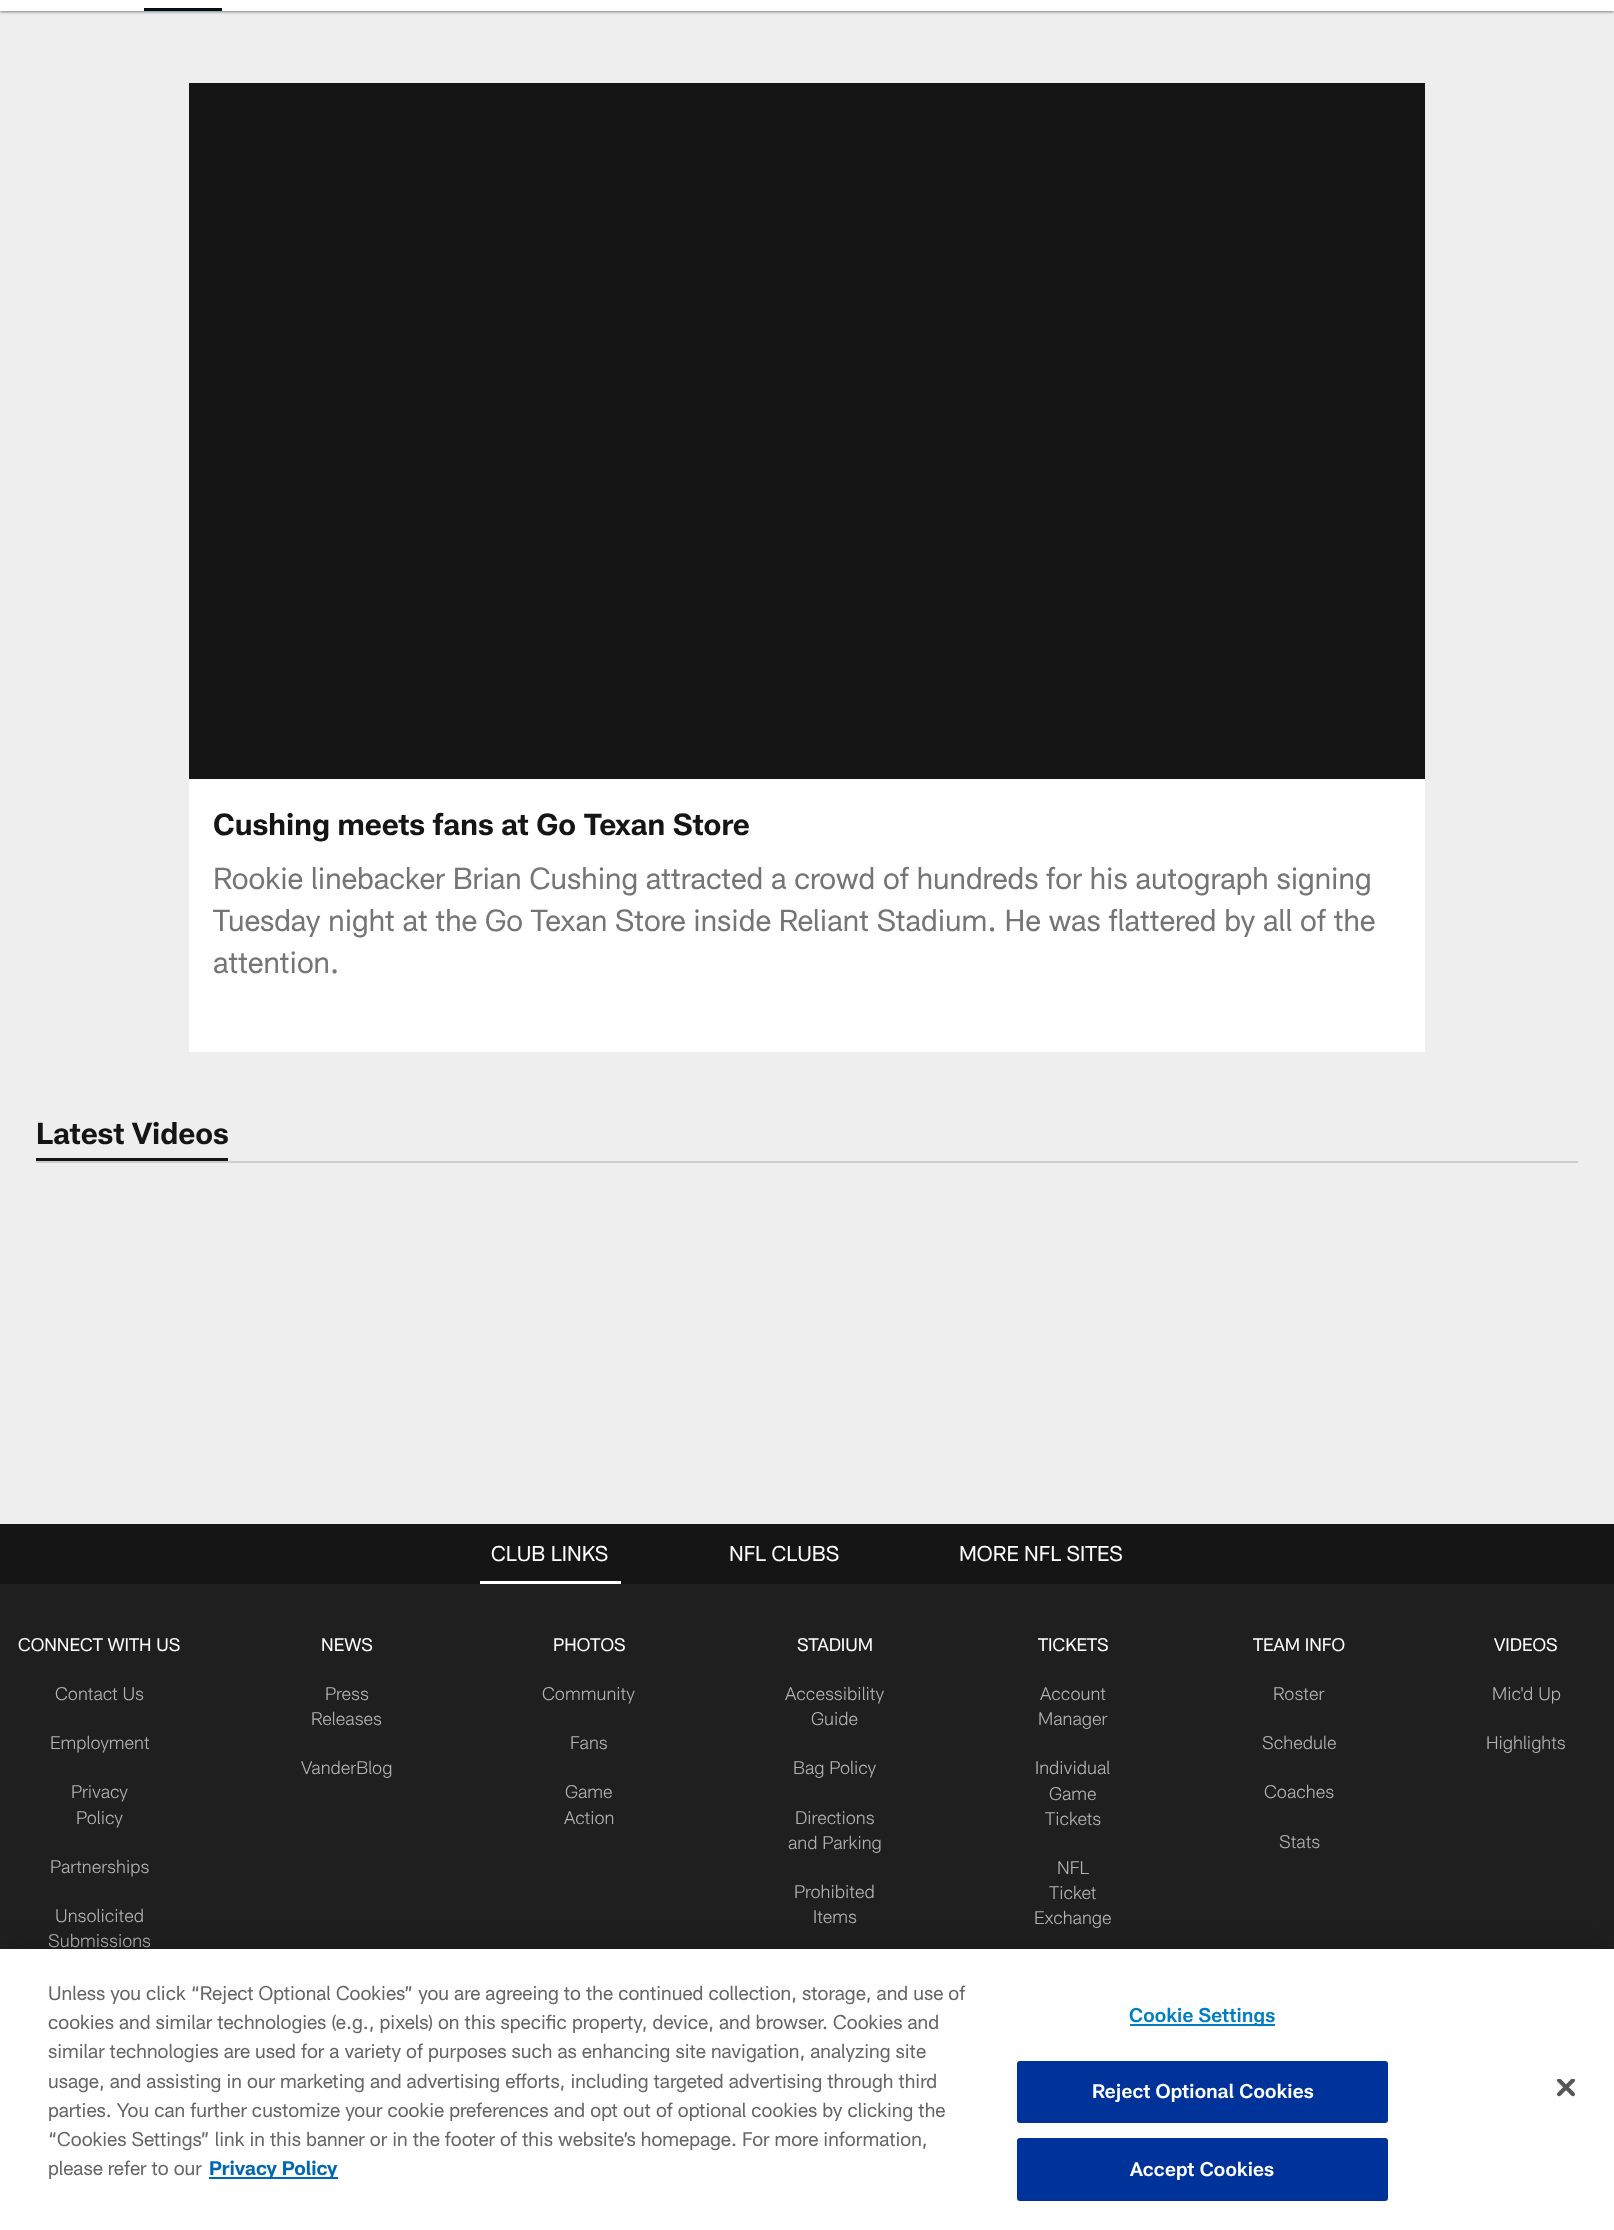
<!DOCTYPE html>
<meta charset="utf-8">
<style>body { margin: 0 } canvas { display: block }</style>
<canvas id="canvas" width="1614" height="2230"></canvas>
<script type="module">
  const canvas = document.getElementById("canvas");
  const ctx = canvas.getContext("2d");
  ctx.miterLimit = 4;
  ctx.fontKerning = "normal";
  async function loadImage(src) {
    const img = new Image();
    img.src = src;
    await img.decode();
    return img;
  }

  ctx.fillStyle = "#eeeeee";
  ctx.fillRect(0, 0, 1614, 2230);
  ctx.fillStyle = "rgba(0, 0, 0, 0.47)";
  ctx.filter = "blur(1.5px)";
  ctx.beginPath();
  ctx.rect(0, -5, 1614, 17);
  ctx.fill();
  ctx.filter = "none";
  ctx.fillStyle = "#ffffff";
  ctx.fillRect(0, 0, 1614, 11);
  ctx.fillStyle = "#021018";
  ctx.fillRect(144, 8, 78, 3);
  ctx.fillStyle = "#ffffff";
  ctx.fillRect(189, 779, 1236, 273);
  ctx.fillStyle = "#151515";
  ctx.fillRect(189, 83, 1236, 696);
  ctx.font = "bold 30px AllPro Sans";
  ctx.fillText("Cushing meets fans at Go Texan Store", 213, 835);
  ctx.font = "30px AllPro Sans";
  ctx.fillStyle = "#757575";
  ctx.fillText("Rookie linebacker Brian Cushing attracted a crowd of hundreds for his autograph signing", 213, 889);
  ctx.fillText("Tuesday night at the Go Texan Store inside Reliant Stadium. He was flattered by all of the", 213, 931);
  ctx.fillText("attention.", 213, 973);
  ctx.fillStyle = "#cccccc";
  ctx.fillRect(36, 1161, 1542, 2);
  ctx.fillStyle = "#151515";
  ctx.fillRect(36, 1158, 192, 3);
  ctx.font = "bold 30px AllPro Sans";
  ctx.fillText("Latest Videos", 36, 1144);
  ctx.fillStyle = "#1f1f1f";
  ctx.fillRect(0, 1584, 1614, 365);
  ctx.fillStyle = "#151515";
  ctx.fillRect(0, 1524, 1614, 60);
  ctx.fillStyle = "#ffffff";
  ctx.fillRect(480, 1581, 141, 3);
  ctx.font = "21px AllPro Sans";
  ctx.fillText("CLUB LINKS", 491, 1561);
  ctx.fillText("NFL CLUBS", 729, 1561);
  ctx.fillText("MORE NFL SITES", 959, 1561);
  ctx.font = "18px AllPro Sans";
  ctx.fillText("CONNECT WITH US", 18, 1651);
  ctx.font = "300 18px AllPro Sans";
  ctx.fillStyle = "#b2b2b2";
  ctx.fillText("Contact Us", 55, 1700);
  ctx.fillText("Employment", 50, 1749);
  ctx.fillText("Privacy", 71, 1798);
  ctx.fillText("Policy", 76, 1824);
  ctx.fillText("Partnerships", 50, 1873);
  ctx.fillText("Unsolicited", 55, 1922);
  ctx.fillText("Submissions", 48, 1947);
  ctx.font = "18px AllPro Sans";
  ctx.fillStyle = "#ffffff";
  ctx.fillText("NEWS", 321, 1651);
  ctx.font = "300 18px AllPro Sans";
  ctx.fillStyle = "#b2b2b2";
  ctx.fillText("Press", 325, 1700);
  ctx.fillText("Releases", 311, 1725);
  ctx.fillText("VanderBlog", 301, 1774);
  ctx.font = "18px AllPro Sans";
  ctx.fillStyle = "#ffffff";
  ctx.fillText("PHOTOS", 553, 1651);
  ctx.font = "300 18px AllPro Sans";
  ctx.fillStyle = "#b2b2b2";
  ctx.fillText("Community", 542, 1700);
  ctx.fillText("Fans", 570, 1749);
  ctx.fillText("Game", 565, 1798);
  ctx.fillText("Action", 564, 1824);
  ctx.font = "18px AllPro Sans";
  ctx.fillStyle = "#ffffff";
  ctx.fillText("STADIUM", 797, 1651);
  ctx.font = "300 18px AllPro Sans";
  ctx.fillStyle = "#b2b2b2";
  ctx.fillText("Accessibility", 785, 1700);
  ctx.fillText("Guide", 811, 1725);
  ctx.fillText("Bag Policy", 793, 1774);
  ctx.fillText("Directions", 795, 1824);
  ctx.fillText("and Parking", 788, 1849);
  ctx.fillText("Prohibited", 794, 1898);
  ctx.fillText("Items", 813, 1923);
  ctx.font = "18px AllPro Sans";
  ctx.fillStyle = "#ffffff";
  ctx.fillText("TICKETS", 1038, 1651);
  ctx.font = "300 18px AllPro Sans";
  ctx.fillStyle = "#b2b2b2";
  ctx.fillText("Account", 1040, 1700);
  ctx.fillText("Manager", 1038, 1725);
  ctx.fillText("Individual", 1035, 1774);
  ctx.fillText("Game", 1049, 1800);
  ctx.fillText("Tickets", 1045, 1825);
  ctx.fillText("NFL", 1057, 1874);
  ctx.fillText("Ticket", 1049, 1899);
  ctx.fillText("Exchange", 1034, 1924);
  ctx.font = "18px AllPro Sans";
  ctx.fillStyle = "#ffffff";
  ctx.fillText("TEAM INFO", 1253, 1651);
  ctx.font = "300 18px AllPro Sans";
  ctx.fillStyle = "#b2b2b2";
  ctx.fillText("Roster", 1273, 1700);
  ctx.fillText("Schedule", 1262, 1749);
  ctx.fillText("Coaches", 1264, 1798);
  ctx.fillText("Stats", 1279, 1848);
  ctx.font = "18px AllPro Sans";
  ctx.fillStyle = "#ffffff";
  ctx.fillText("VIDEOS", 1494, 1651);
  ctx.font = "300 18px AllPro Sans";
  ctx.fillStyle = "#b2b2b2";
  ctx.fillText("Mic'd Up", 1492, 1700);
  ctx.fillText("Highlights", 1486, 1749);
  ctx.fillStyle = "rgba(0, 0, 0, 0.2)";
  ctx.filter = "blur(13.5px)";
  ctx.beginPath();
  ctx.rect(0, 1949, 1614, 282);
  ctx.fill();
  ctx.filter = "none";
  ctx.fillStyle = "#ffffff";
  ctx.fillRect(0, 1949, 1614, 281);
  ctx.font = "19.5px AllPro Sans";
  ctx.fillStyle = "#666666";
  ctx.fillText("Unless you click “Reject Optional Cookies” you are agreeing to the continued collection, storage, and use of", 48, 2000);
  ctx.fillText("cookies and similar technologies (e.g., pixels) on this specific property, device, and browser. Cookies and", 48, 2029);
  ctx.fillText("similar technologies are used for a variety of purposes such as enhancing site navigation, analyzing site", 48, 2058);
  ctx.fillText("usage, and assisting in our marketing and advertising efforts, including targeted advertising through third", 48, 2088);
  ctx.fillText("parties. You can further customize your cookie preferences and opt out of optional cookies by clicking the", 48, 2117);
  ctx.fillText("“Cookies Settings” link in this banner or in the footer of this website’s homepage. For more information,", 48, 2146);
  ctx.fillText("please refer to our", 48, 2175);
  ctx.fillStyle = "#0067b1";
  ctx.fillRect(209, 2177, 129, 2);
  ctx.font = "bold 19.5px AllPro Sans";
  ctx.fillText("Privacy Policy", 209, 2175);
  ctx.fillStyle = "#007dc3";
  ctx.fillRect(1130, 2024, 145, 2);
  ctx.letterSpacing = "0.2px";
  ctx.font = "600 19.5px AllPro Sans";
  ctx.fillText("Cookie Settings", 1129, 2022);
  ctx.fillStyle = "#003399";
  ctx.beginPath();
  ctx.roundRect(1018, 2062, 369, 60, 2);
  ctx.fill();
  ctx.strokeStyle = "#003399";
  ctx.lineWidth = 2;
  ctx.stroke();
  ctx.fillStyle = "#ffffff";
  ctx.fillText("Reject Optional Cookies", 1092, 2098);
  ctx.fillStyle = "#003399";
  ctx.beginPath();
  ctx.roundRect(1018, 2139, 369, 61, 2);
  ctx.fill();
  ctx.stroke();
  ctx.fillStyle = "#ffffff";
  ctx.fillText("Accept Cookies", 1130, 2176);
  ctx.drawImage(await loadImage("img1.png"), 1557, 2079, 18, 18);
</script>
